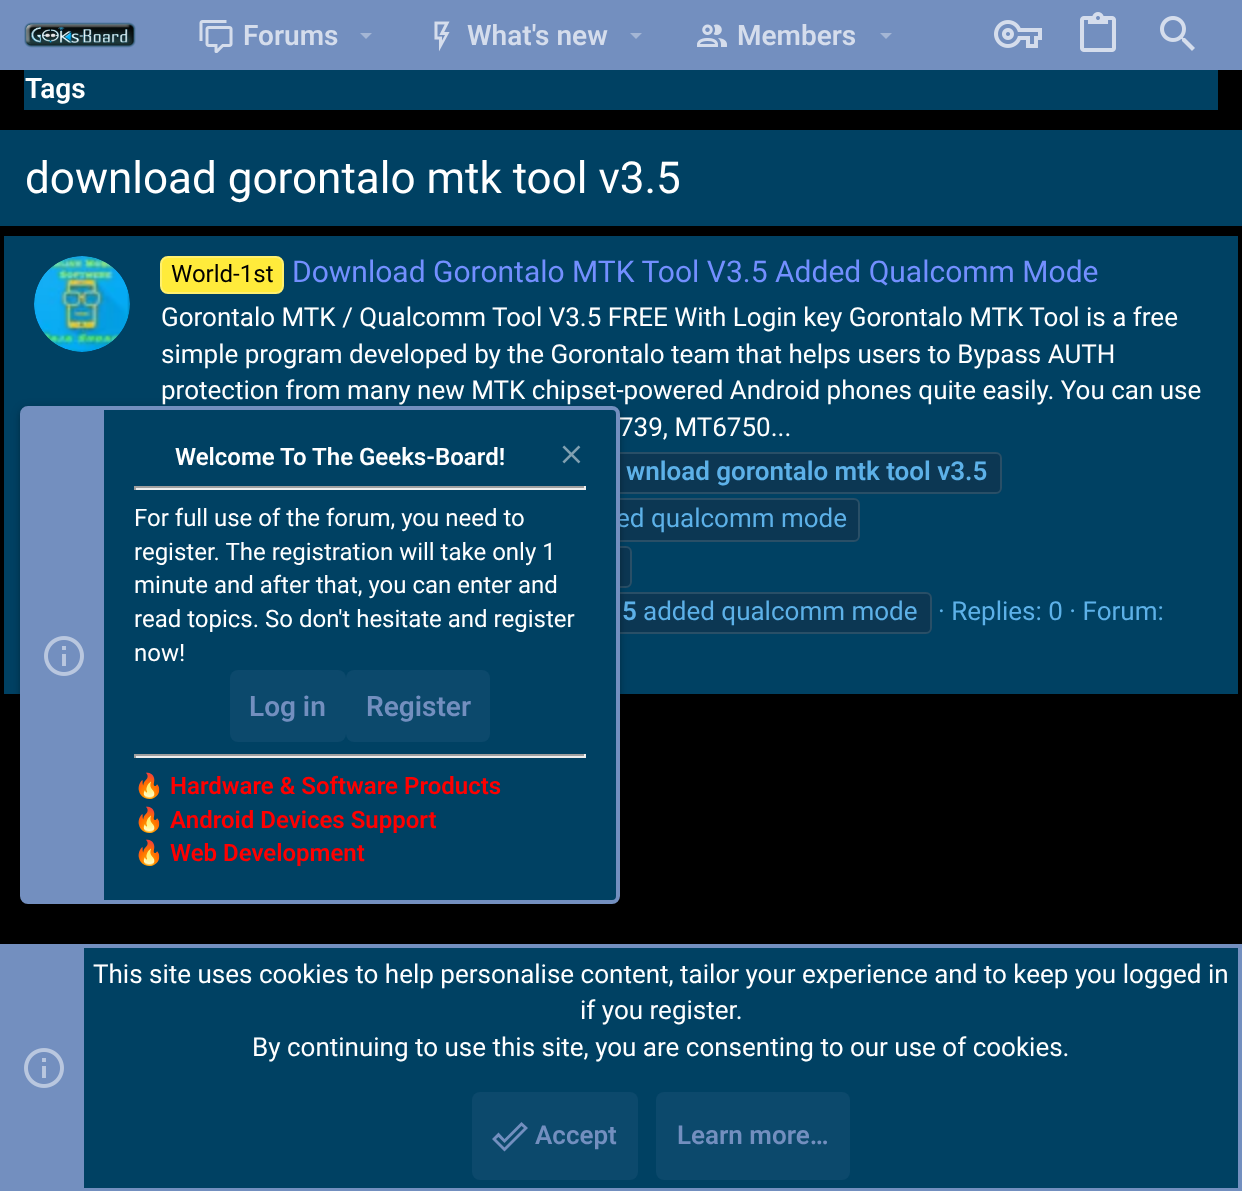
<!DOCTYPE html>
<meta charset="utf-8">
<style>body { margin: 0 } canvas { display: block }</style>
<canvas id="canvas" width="1242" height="1191"></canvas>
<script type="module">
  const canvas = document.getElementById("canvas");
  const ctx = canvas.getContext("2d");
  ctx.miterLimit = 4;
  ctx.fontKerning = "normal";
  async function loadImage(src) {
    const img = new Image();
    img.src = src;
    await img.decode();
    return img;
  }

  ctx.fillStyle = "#000000";
  ctx.fillRect(0, 0, 1242, 1191);
  ctx.fillStyle = "#738fbf";
  ctx.fillRect(0, 0, 1242, 70);
  ctx.drawImage(await loadImage("img1.png"), 24, 22, 112, 26);
  ctx.drawImage(await loadImage("img2.png"), 199, 20, 34, 33);
  ctx.font = "600 28px Roboto";
  ctx.fillStyle = "#d5ddec";
  ctx.fillText("Forums", 243, 45);
  ctx.fillStyle = "#a4b6d5";
  ctx.beginPath();
  ctx.moveTo(360, 33);
  ctx.lineTo(366, 39);
  ctx.lineTo(372, 33);
  ctx.closePath();
  ctx.fill();
  ctx.drawImage(await loadImage("img3.png"), 434, 21, 16, 31);
  ctx.fillStyle = "#d5ddec";
  ctx.fillText("What's new", 467, 45);
  ctx.fillStyle = "#a4b6d5";
  ctx.beginPath();
  ctx.moveTo(630, 33);
  ctx.lineTo(636, 39);
  ctx.lineTo(642, 33);
  ctx.closePath();
  ctx.fill();
  ctx.drawImage(await loadImage("img4.png"), 697, 24, 30, 23);
  ctx.fillStyle = "#d5ddec";
  ctx.fillText("Members", 737, 45);
  ctx.fillStyle = "#a4b6d5";
  ctx.beginPath();
  ctx.moveTo(880, 33);
  ctx.lineTo(886, 39);
  ctx.lineTo(892, 33);
  ctx.closePath();
  ctx.fill();
  ctx.drawImage(await loadImage("img5.png"), 994, 20, 48, 28);
  ctx.drawImage(await loadImage("img6.png"), 1080, 12, 36, 40);
  ctx.drawImage(await loadImage("img7.png"), 1160, 16, 35, 35);
  ctx.fillStyle = "#004163";
  ctx.fillRect(24, 70, 1194, 40);
  ctx.fillStyle = "#ffffff";
  ctx.fillText("Tags", 25, 98);
  ctx.fillStyle = "#004163";
  ctx.fillRect(0, 130, 1242, 96);
  ctx.font = "44px Roboto";
  ctx.fillStyle = "#ffffff";
  ctx.fillText("download gorontalo mtk tool v3.5", 25, 193);
  ctx.fillStyle = "#004163";
  ctx.fillRect(4, 236, 1234, 458);
  ctx.drawImage(await loadImage("img8.png"), 34, 256, 96, 96);
  ctx.fillStyle = "#ffeb3b";
  ctx.beginPath();
  ctx.roundRect(161, 257, 122, 36, 7);
  ctx.fill();
  ctx.strokeStyle = "#fff06e";
  ctx.lineWidth = 2;
  ctx.stroke();
  ctx.font = "24px Roboto";
  ctx.fillStyle = "#000000";
  ctx.fillText("World-1st", 171, 282);
  ctx.font = "30px Roboto";
  ctx.fillStyle = "#738fff";
  ctx.fillText("Download Gorontalo MTK Tool V3.5 Added Qualcomm Mode", 292, 282);
  ctx.font = "26px Roboto";
  ctx.fillStyle = "#ffffff";
  ctx.fillText("Gorontalo MTK / Qualcomm Tool V3.5 FREE With Login key Gorontalo MTK Tool is a free", 161, 326);
  ctx.fillText("simple program developed by the Gorontalo team that helps users to Bypass AUTH", 161, 363);
  ctx.fillText("protection from many new MTK chipset-powered Android phones quite easily. You can use", 161, 399);
  ctx.fillText("739, MT6750...", 619, 436);
  ctx.fillStyle = "#0c3753";
  ctx.beginPath();
  ctx.roundRect(582, 452, 420, 42, 6);
  ctx.fill();
  ctx.beginPath();
  ctx.roundRect(583, 453, 418, 40, 5);
  ctx.strokeStyle = "rgba(255, 255, 255, 0.12)";
  ctx.stroke();
  ctx.font = "600 26px Roboto";
  ctx.fillStyle = "#5db1e8";
  ctx.fillText("wnload gorontalo mtk tool v3.5", 626, 480);
  ctx.fillStyle = "#0c3753";
  ctx.beginPath();
  ctx.roundRect(160, 498, 700, 44, 6);
  ctx.fill();
  ctx.beginPath();
  ctx.roundRect(161, 499, 698, 42, 5);
  ctx.stroke();
  ctx.font = "26px Roboto";
  ctx.fillStyle = "#5db1e8";
  ctx.fillText("ed qualcomm mode", 616, 527);
  ctx.fillStyle = "#0c3753";
  ctx.beginPath();
  ctx.roundRect(160, 546, 472, 42, 6);
  ctx.fill();
  ctx.beginPath();
  ctx.roundRect(161, 547, 470, 40, 5);
  ctx.stroke();
  ctx.beginPath();
  ctx.roundRect(160, 592, 772, 42, 6);
  ctx.fill();
  ctx.beginPath();
  ctx.roundRect(161, 593, 770, 40, 5);
  ctx.stroke();
  ctx.font = "600 26px Roboto";
  ctx.fillStyle = "#5db1e8";
  ctx.fillText("5", 622, 620);
  ctx.font = "26px Roboto";
  ctx.fillText("added qualcomm mode", 643, 620);
  ctx.fillText("· Replies: 0 · Forum:", 938, 620);
  ctx.fillStyle = "rgba(0, 0, 0, 0.2)";
  ctx.filter = "blur(5px)";
  ctx.beginPath();
  ctx.roundRect(20, 408, 600, 498, 8);
  ctx.fill();
  ctx.filter = "none";
  ctx.fillStyle = "rgba(0, 0, 0, 0.14)";
  ctx.filter = "blur(2px)";
  ctx.beginPath();
  ctx.roundRect(20, 410, 600, 498, 8);
  ctx.fill();
  ctx.filter = "none";
  ctx.fillStyle = "#004163";
  ctx.beginPath();
  ctx.roundRect(22, 408, 596, 494, 6);
  ctx.fill();
  ctx.strokeStyle = "#738fbf";
  ctx.lineWidth = 4;
  ctx.stroke();
  ctx.fillStyle = "#738fbf";
  ctx.fillRect(24, 410, 80, 490);
  ctx.drawImage(await loadImage("img9.png"), 44, 636, 40, 40);
  ctx.font = "600 24px Roboto";
  ctx.fillStyle = "#ffffff";
  ctx.fillText("Welcome To The Geeks-Board!", 175, 465);
  ctx.drawImage(await loadImage("img10.png"), 562, 445, 19, 19);
  ctx.fillStyle = "#9f9f9f";
  ctx.fillRect(134, 486, 452, 2);
  ctx.fillStyle = "#eeeeee";
  ctx.fillRect(584, 486, 2, 4);
  ctx.fillRect(134, 488, 452, 2);
  ctx.fillStyle = "#9f9f9f";
  ctx.fillRect(134, 486, 2, 4);
  ctx.font = "24px Roboto";
  ctx.fillStyle = "#ffffff";
  ctx.fillText("For full use of the forum, you need to", 134, 526);
  ctx.fillText("register. The registration will take only 1", 134, 560);
  ctx.fillText("minute and after that, you can enter and", 134, 593);
  ctx.fillText("read topics. So don't hesitate and register", 134, 627);
  ctx.fillText("now!", 134, 661);
  ctx.fillStyle = "#0c496c";
  ctx.beginPath();
  ctx.roundRect(230, 670, 116, 72, 8);
  ctx.fill();
  ctx.font = "600 28px Roboto";
  ctx.fillStyle = "#738fbf";
  ctx.fillText("Log in", 249, 716);
  ctx.fillStyle = "#0c496c";
  ctx.beginPath();
  ctx.roundRect(346, 670, 144, 72, 8);
  ctx.fill();
  ctx.fillStyle = "#738fbf";
  ctx.fillText("Register", 366, 716);
  ctx.fillStyle = "#9f9f9f";
  ctx.fillRect(134, 754, 452, 2);
  ctx.fillStyle = "#eeeeee";
  ctx.fillRect(584, 754, 2, 4);
  ctx.fillRect(134, 756, 452, 2);
  ctx.fillStyle = "#9f9f9f";
  ctx.fillRect(134, 754, 2, 4);
  ctx.font = "24px Noto Color Emoji";
  ctx.fillStyle = "#ffffff";
  ctx.fillText("🔥", 134, 794);
  ctx.font = "600 24px Roboto";
  ctx.fillStyle = "#ff0000";
  ctx.fillText("Hardware & Software Products", 170, 794);
  ctx.font = "24px Noto Color Emoji";
  ctx.fillStyle = "#ffffff";
  ctx.fillText("🔥", 134, 828);
  ctx.font = "600 24px Roboto";
  ctx.fillStyle = "#ff0000";
  ctx.fillText("Android Devices Support", 170, 828);
  ctx.font = "24px Noto Color Emoji";
  ctx.fillStyle = "#ffffff";
  ctx.fillText("🔥", 134, 861);
  ctx.font = "600 24px Roboto";
  ctx.fillStyle = "#ff0000";
  ctx.fillText("Web Development", 170, 861);
  ctx.fillStyle = "#004163";
  ctx.fillRect(84, 948, 1154, 240);
  ctx.strokeRect(2, 946, 1238, 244);
  ctx.fillStyle = "#738fbf";
  ctx.fillRect(4, 948, 80, 240);
  ctx.drawImage(await loadImage("img9.png"), 24, 1048, 40, 40);
  ctx.font = "26px Roboto";
  ctx.fillStyle = "#ffffff";
  ctx.fillText("This site uses cookies to help personalise content, tailor your experience and to keep you logged in", 93, 983);
  ctx.fillText("if you register.", 580, 1019);
  ctx.fillText("By continuing to use this site, you are consenting to our use of cookies.", 252, 1056);
  ctx.fillStyle = "#0c496c";
  ctx.beginPath();
  ctx.roundRect(472, 1092, 166, 88, 8);
  ctx.fill();
  ctx.fillStyle = "#738fbf";
  ctx.beginPath();
  ctx.moveTo(521.5, 1122);
  ctx.lineTo(528, 1128);
  ctx.lineTo(504.5, 1151.5);
  ctx.lineTo(492, 1139);
  ctx.lineTo(498.5, 1132.5);
  ctx.lineTo(504.5, 1139);
  ctx.closePath();
  ctx.moveTo(521.5, 1126);
  ctx.lineTo(504.5, 1143);
  ctx.lineTo(498.5, 1137);
  ctx.lineTo(496, 1139);
  ctx.lineTo(504.5, 1147.5);
  ctx.lineTo(524, 1128);
  ctx.closePath();
  ctx.fill();
  ctx.font = "600 26px Roboto";
  ctx.fillText("Accept", 535, 1144);
  ctx.fillStyle = "#0c496c";
  ctx.beginPath();
  ctx.roundRect(656, 1092, 194, 88, 8);
  ctx.fill();
  ctx.fillStyle = "#738fbf";
  ctx.fillText("Learn more…", 677, 1144);
</script>
